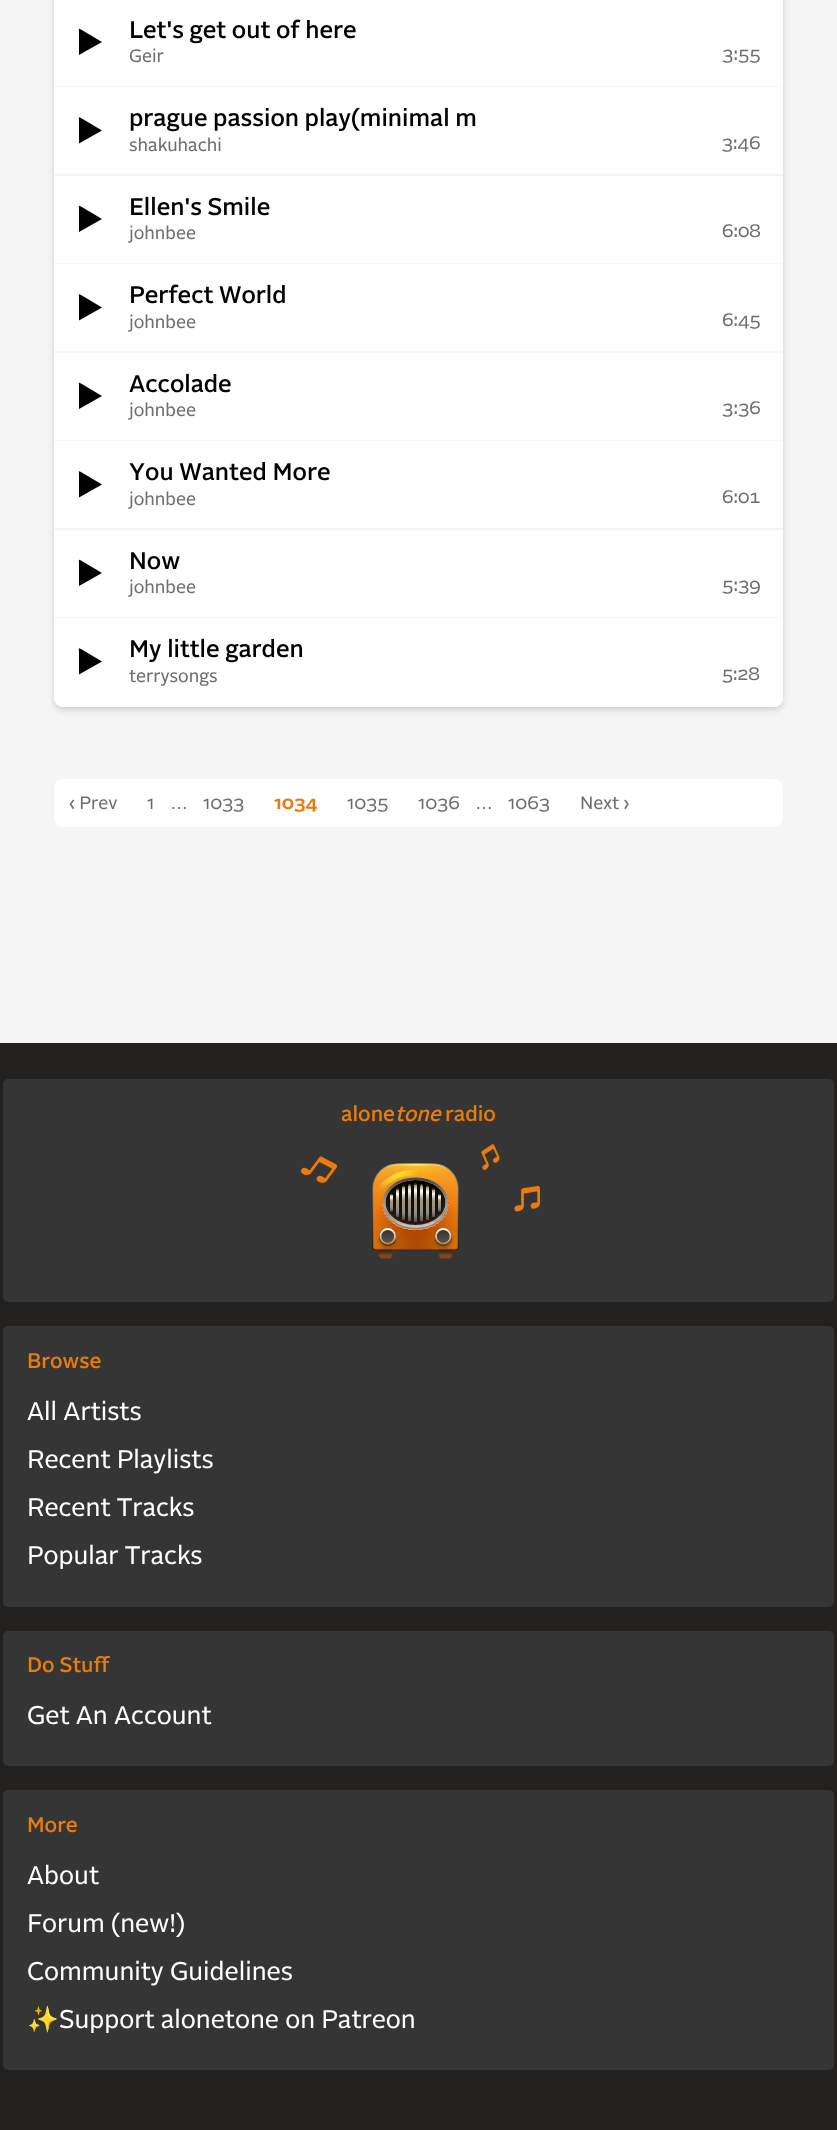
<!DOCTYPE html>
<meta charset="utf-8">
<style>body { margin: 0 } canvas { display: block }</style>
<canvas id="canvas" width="837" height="2130"></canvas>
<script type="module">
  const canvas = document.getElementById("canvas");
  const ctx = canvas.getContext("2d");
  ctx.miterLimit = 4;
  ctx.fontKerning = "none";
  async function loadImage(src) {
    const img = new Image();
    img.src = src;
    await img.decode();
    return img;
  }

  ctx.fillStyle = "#f5f5f5";
  ctx.fillRect(0, 0, 837, 2130);
  ctx.fillStyle = "rgba(0, 0, 0, 0.15)";
  ctx.filter = "blur(3px)";
  ctx.beginPath();
  ctx.roundRect(54, -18, 729, 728, 9);
  ctx.fill();
  ctx.filter = "none";
  ctx.fillStyle = "#ffffff";
  ctx.beginPath();
  ctx.roundRect(54, -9, 729, 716, 9);
  ctx.fill();
  ctx.fillStyle = "#f5f5f5";
  ctx.fillRect(54, 86, 729, 1);
  ctx.fillStyle = "#000000";
  ctx.beginPath();
  ctx.moveTo(79, 55);
  ctx.lineTo(79, 33);
  ctx.bezierCurveTo(79, 28, 78, 28, 81, 29.5);
  ctx.lineTo(102, 42);
  ctx.closePath();
  ctx.fill();
  ctx.font = "500 24px 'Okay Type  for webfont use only'";
  ctx.fillText("Let's get out of here", 129, 38);
  ctx.font = "18px 'Okay Type  for webfont use only'";
  ctx.fillStyle = "#6e6d6d";
  ctx.fillText("Geir", 129, 62);
  ctx.font = "18px 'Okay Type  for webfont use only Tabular'";
  ctx.fillText("3:55", 722, 60);
  ctx.fillStyle = "#f5f5f5";
  ctx.fillRect(54, 174, 729, 2);
  ctx.fillStyle = "#000000";
  ctx.beginPath();
  ctx.moveTo(79, 143.5);
  ctx.lineTo(79, 121.5);
  ctx.bezierCurveTo(79, 116.5, 78, 116.5, 81, 118);
  ctx.lineTo(102, 130.5);
  ctx.closePath();
  ctx.fill();
  ctx.font = "500 24px 'Okay Type  for webfont use only'";
  ctx.fillText("prague passion play(minimal m", 129, 126);
  ctx.font = "18px 'Okay Type  for webfont use only'";
  ctx.fillStyle = "#6e6d6d";
  ctx.fillText("shakuhachi", 129, 151);
  ctx.fillText("3:46", 722, 149);
  ctx.fillStyle = "#f5f5f5";
  ctx.fillRect(54, 263, 729, 1);
  ctx.fillStyle = "#000000";
  ctx.beginPath();
  ctx.moveTo(79, 232);
  ctx.lineTo(79, 210);
  ctx.bezierCurveTo(79, 205, 78, 205, 81, 206.5);
  ctx.lineTo(102, 219);
  ctx.closePath();
  ctx.fill();
  ctx.font = "500 24px 'Okay Type  for webfont use only'";
  ctx.fillText("Ellen's Smile", 129, 215);
  ctx.font = "18px 'Okay Type  for webfont use only'";
  ctx.fillStyle = "#6e6d6d";
  ctx.fillText("johnbee", 129, 239);
  ctx.font = "18px 'Okay Type  for webfont use only Tabular'";
  ctx.fillText("6:08", 722, 237);
  ctx.fillStyle = "#f5f5f5";
  ctx.fillRect(54, 351, 729, 2);
  ctx.fillStyle = "#000000";
  ctx.beginPath();
  ctx.moveTo(79, 320.5);
  ctx.lineTo(79, 298.5);
  ctx.bezierCurveTo(79, 293.5, 78, 293.5, 81, 295);
  ctx.lineTo(102, 307.5);
  ctx.closePath();
  ctx.fill();
  ctx.font = "500 24px 'Okay Type  for webfont use only'";
  ctx.fillText("Perfect World", 129, 303);
  ctx.font = "18px 'Okay Type  for webfont use only'";
  ctx.fillStyle = "#6e6d6d";
  ctx.fillText("johnbee", 129, 328);
  ctx.fillText("6:45", 722, 326);
  ctx.fillStyle = "#f5f5f5";
  ctx.fillRect(54, 440, 729, 1);
  ctx.fillStyle = "#000000";
  ctx.beginPath();
  ctx.moveTo(79, 409);
  ctx.lineTo(79, 387);
  ctx.bezierCurveTo(79, 382, 78, 382, 81, 383.5);
  ctx.lineTo(102, 396);
  ctx.closePath();
  ctx.fill();
  ctx.font = "500 24px 'Okay Type  for webfont use only'";
  ctx.fillText("Accolade", 129, 392);
  ctx.font = "18px 'Okay Type  for webfont use only'";
  ctx.fillStyle = "#6e6d6d";
  ctx.fillText("johnbee", 129, 416);
  ctx.font = "18px 'Okay Type  for webfont use only Tabular'";
  ctx.fillText("3:36", 722, 414);
  ctx.fillStyle = "#f5f5f5";
  ctx.fillRect(54, 528, 729, 2);
  ctx.fillStyle = "#000000";
  ctx.beginPath();
  ctx.moveTo(79, 497.5);
  ctx.lineTo(79, 475.5);
  ctx.bezierCurveTo(79, 470.5, 78, 470.5, 81, 472);
  ctx.lineTo(102, 484.5);
  ctx.closePath();
  ctx.fill();
  ctx.font = "500 24px 'Okay Type  for webfont use only'";
  ctx.fillText("You Wanted More", 129, 480);
  ctx.font = "18px 'Okay Type  for webfont use only'";
  ctx.fillStyle = "#6e6d6d";
  ctx.fillText("johnbee", 129, 505);
  ctx.font = "18px 'Okay Type  for webfont use only Tabular'";
  ctx.fillText("6:01", 722, 503);
  ctx.fillStyle = "#f5f5f5";
  ctx.fillRect(54, 617, 729, 1);
  ctx.fillStyle = "#000000";
  ctx.beginPath();
  ctx.moveTo(79, 586);
  ctx.lineTo(79, 564);
  ctx.bezierCurveTo(79, 559, 78, 559, 81, 560.5);
  ctx.lineTo(102, 573);
  ctx.closePath();
  ctx.fill();
  ctx.font = "500 24px 'Okay Type  for webfont use only'";
  ctx.fillText("Now", 129, 569);
  ctx.font = "18px 'Okay Type  for webfont use only'";
  ctx.fillStyle = "#6e6d6d";
  ctx.fillText("johnbee", 129, 593);
  ctx.font = "18px 'Okay Type  for webfont use only Tabular'";
  ctx.fillText("5:39", 722, 591);
  ctx.fillStyle = "#ffffff";
  ctx.beginPath();
  ctx.roundRect(54, 618, 729, 89, [0, 0, 9, 9]);
  ctx.fill();
  ctx.save();
  ctx.beginPath();
  ctx.roundRect(54, 618, 729, 89, [0, 0, 9, 9]);
  ctx.clip();
  ctx.fillRect(54, 618, 729, 87);
  ctx.restore();
  ctx.fillStyle = "#000000";
  ctx.beginPath();
  ctx.moveTo(79, 674.5);
  ctx.lineTo(79, 652.5);
  ctx.bezierCurveTo(79, 647.5, 78, 647.5, 81, 649);
  ctx.lineTo(102, 661.5);
  ctx.closePath();
  ctx.fill();
  ctx.font = "500 24px 'Okay Type  for webfont use only'";
  ctx.fillText("My little garden", 129, 657);
  ctx.font = "18px 'Okay Type  for webfont use only'";
  ctx.fillStyle = "#6e6d6d";
  ctx.fillText("terrysongs", 129, 682);
  ctx.fillText("5:28", 722, 680);
  ctx.fillStyle = "#ffffff";
  ctx.beginPath();
  ctx.roundRect(54, 779, 729, 48, 9);
  ctx.fill();
  ctx.fillStyle = "#6e6d6d";
  ctx.fillText("‹ Prev", 69, 809);
  ctx.fillText("1", 147, 809);
  ctx.font = "18px Liberation Sans";
  ctx.fillText("…", 170, 809);
  ctx.font = "18px 'Okay Type  for webfont use only'";
  ctx.fillText("1033", 203, 809);
  ctx.font = "bold 18px 'Okay Type  for webfont use only'";
  ctx.fillStyle = "#eb7b0c";
  ctx.fillText("1034", 274, 809);
  ctx.font = "18px 'Okay Type  for webfont use only'";
  ctx.fillStyle = "#6e6d6d";
  ctx.fillText("1035", 347, 809);
  ctx.fillText("1036", 418, 809);
  ctx.font = "18px Liberation Sans";
  ctx.fillText("…", 475, 809);
  ctx.font = "18px 'Okay Type  for webfont use only'";
  ctx.fillText("1063", 508, 809);
  ctx.fillText("Next ›", 580, 809);
  ctx.fillStyle = "#232120";
  ctx.fillRect(0, 1043, 837, 1087);
  ctx.fillStyle = "#353535";
  ctx.beginPath();
  ctx.roundRect(3, 1079, 831, 223, 5);
  ctx.fill();
  ctx.font = "500 21px 'Okay Type  for webfont use only'";
  ctx.fillStyle = "#eb7b0c";
  ctx.fillText("alone", 341, 1121);
  ctx.font = "italic 500 21px 'Okay Type  for webfont use only'";
  ctx.fillText("tone", 395, 1121);
  ctx.font = "500 21px 'Okay Type  for webfont use only'";
  ctx.fillText("radio", 445, 1121);
  ctx.drawImage(await loadImage("img1.png"), 301, 1144, 239, 116);
  ctx.fillStyle = "#353535";
  ctx.beginPath();
  ctx.roundRect(3, 1326, 831, 281, 5);
  ctx.fill();
  ctx.fillStyle = "#eb7b0c";
  ctx.fillText("Browse", 27, 1368);
  ctx.font = "25.5px 'Okay Type  for webfont use only'";
  ctx.fillStyle = "#ffffff";
  ctx.fillText("All Artists", 27, 1420);
  ctx.fillText("Recent Playlists", 27, 1468);
  ctx.fillText("Recent Tracks", 27, 1516);
  ctx.fillText("Popular Tracks", 27, 1564);
  ctx.fillStyle = "#353535";
  ctx.beginPath();
  ctx.roundRect(3, 1631, 831, 135, 5);
  ctx.fill();
  ctx.font = "500 21px 'Okay Type  for webfont use only'";
  ctx.fillStyle = "#eb7b0c";
  ctx.fillText("Do Stuff", 27, 1672);
  ctx.font = "25.5px 'Okay Type  for webfont use only'";
  ctx.fillStyle = "#ffffff";
  ctx.fillText("Get An Account", 27, 1724);
  ctx.fillStyle = "#353535";
  ctx.beginPath();
  ctx.roundRect(3, 1790, 831, 280, 5);
  ctx.fill();
  ctx.font = "500 21px 'Okay Type  for webfont use only'";
  ctx.fillStyle = "#eb7b0c";
  ctx.fillText("More", 27, 1832);
  ctx.font = "25.5px 'Okay Type  for webfont use only'";
  ctx.fillStyle = "#ffffff";
  ctx.fillText("About", 27, 1884);
  ctx.fillText("Forum (new!)", 27, 1932);
  ctx.fillText("Community Guidelines", 27, 1980);
  ctx.font = "25.5px Noto Color Emoji";
  ctx.fillText("✨", 27, 2028);
  ctx.font = "25.5px 'Okay Type  for webfont use only'";
  ctx.fillText("Support alonetone on Patreon", 59, 2028);
</script>
